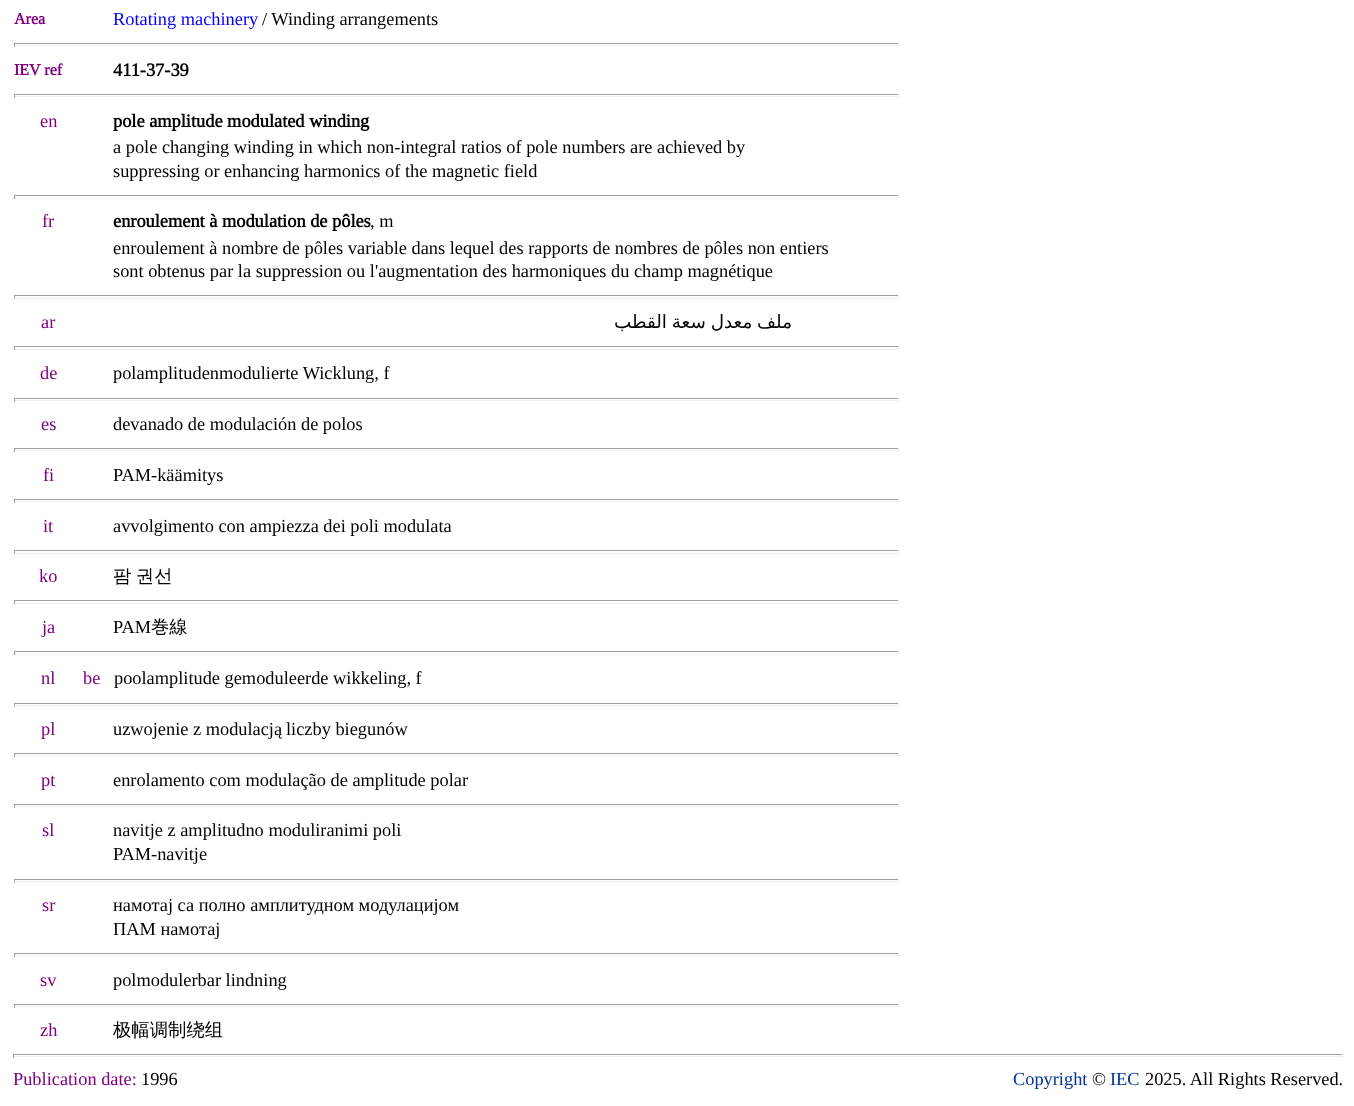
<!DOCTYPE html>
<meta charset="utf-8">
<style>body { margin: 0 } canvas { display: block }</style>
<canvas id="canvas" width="1354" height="1106"></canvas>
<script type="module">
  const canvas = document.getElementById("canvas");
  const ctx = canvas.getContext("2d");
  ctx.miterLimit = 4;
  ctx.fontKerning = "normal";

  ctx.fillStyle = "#ffffff";
  ctx.fillRect(0, 0, 1354, 1106);
  ctx.font = "bold 16px Liberation Serif";
  ctx.fillStyle = "#800080";
  ctx.fillText("Area", 14, 24);
  ctx.font = "18.35px Liberation Serif";
  ctx.fillStyle = "#0000ff";
  ctx.fillText("Rotating machinery", 113, 25);
  ctx.fillStyle = "#000000";
  ctx.fillText("/ Winding arrangements", 262, 25);
  ctx.fillStyle = "#9f9f9f";
  ctx.fillRect(14, 43, 885, 1);
  ctx.fillStyle = "#eeeeee";
  ctx.fillRect(898, 43, 1, 4);
  ctx.fillRect(14, 45, 885, 1);
  ctx.fillStyle = "#9f9f9f";
  ctx.fillRect(14, 43, 1, 4);
  ctx.font = "bold 16px Liberation Serif";
  ctx.fillStyle = "#800080";
  ctx.fillText("IEV ref", 14, 75);
  ctx.font = "bold 18.35px Liberation Serif";
  ctx.fillStyle = "#000000";
  ctx.fillText("411-37-39", 113, 76);
  ctx.fillStyle = "#9f9f9f";
  ctx.fillRect(14, 94, 885, 1);
  ctx.fillStyle = "#eeeeee";
  ctx.fillRect(898, 94, 1, 4);
  ctx.fillRect(14, 96, 885, 1);
  ctx.fillStyle = "#9f9f9f";
  ctx.fillRect(14, 94, 1, 4);
  ctx.font = "18.35px Liberation Serif";
  ctx.fillStyle = "#800080";
  ctx.fillText("en", 40, 127);
  ctx.font = "bold 18.35px Liberation Serif";
  ctx.fillStyle = "#000000";
  ctx.fillText("pole amplitude modulated winding", 113, 127);
  ctx.font = "18.35px Liberation Serif";
  ctx.fillText("a pole changing winding in which non-integral ratios of pole numbers are achieved by", 113, 153);
  ctx.fillText("suppressing or enhancing harmonics of the magnetic field", 113, 177);
  ctx.fillStyle = "#9f9f9f";
  ctx.fillRect(14, 195, 885, 1);
  ctx.fillStyle = "#eeeeee";
  ctx.fillRect(898, 195, 1, 4);
  ctx.fillRect(14, 198, 885, 1);
  ctx.fillStyle = "#9f9f9f";
  ctx.fillRect(14, 195, 1, 4);
  ctx.fillStyle = "#800080";
  ctx.fillText("fr", 42, 227);
  ctx.font = "bold 18.35px Liberation Serif";
  ctx.fillStyle = "#000000";
  ctx.fillText("enroulement à modulation de pôles", 113, 227);
  ctx.font = "18.35px Liberation Serif";
  ctx.fillText(", m", 370, 227);
  ctx.fillText("enroulement à nombre de pôles variable dans lequel des rapports de nombres de pôles non entiers", 113, 254);
  ctx.fillText("sont obtenus par la suppression ou l'augmentation des harmoniques du champ magnétique", 113, 277);
  ctx.fillStyle = "#9f9f9f";
  ctx.fillRect(14, 295, 885, 1);
  ctx.fillStyle = "#eeeeee";
  ctx.fillRect(898, 295, 1, 4);
  ctx.fillRect(14, 298, 885, 1);
  ctx.fillStyle = "#9f9f9f";
  ctx.fillRect(14, 295, 1, 4);
  ctx.fillStyle = "#800080";
  ctx.fillText("ar", 41, 328);
  ctx.wordSpacing = "-1px";
  ctx.direction = "rtl";
  ctx.font = "18.35px DejaVu Sans";
  ctx.fillStyle = "#000000";
  ctx.fillText("ملف معدل سعة القطب", 792, 328);
  ctx.fillStyle = "#9f9f9f";
  ctx.fillRect(14, 346, 885, 1);
  ctx.fillStyle = "#eeeeee";
  ctx.fillRect(898, 346, 1, 4);
  ctx.fillRect(14, 349, 885, 1);
  ctx.fillStyle = "#9f9f9f";
  ctx.fillRect(14, 346, 1, 4);
  ctx.wordSpacing = "0px";
  ctx.direction = "ltr";
  ctx.font = "18.35px Liberation Serif";
  ctx.fillStyle = "#800080";
  ctx.fillText("de", 40, 379);
  ctx.fillStyle = "#000000";
  ctx.fillText("polamplitudenmodulierte Wicklung, f", 113, 379);
  ctx.fillStyle = "#9f9f9f";
  ctx.fillRect(14, 398, 885, 1);
  ctx.fillStyle = "#eeeeee";
  ctx.fillRect(898, 398, 1, 4);
  ctx.fillRect(14, 400, 885, 1);
  ctx.fillStyle = "#9f9f9f";
  ctx.fillRect(14, 398, 1, 4);
  ctx.fillStyle = "#800080";
  ctx.fillText("es", 41, 430);
  ctx.fillStyle = "#000000";
  ctx.fillText("devanado de modulación de polos", 113, 430);
  ctx.fillStyle = "#9f9f9f";
  ctx.fillRect(14, 448, 885, 1);
  ctx.fillStyle = "#eeeeee";
  ctx.fillRect(898, 448, 1, 4);
  ctx.fillRect(14, 450, 885, 1);
  ctx.fillStyle = "#9f9f9f";
  ctx.fillRect(14, 448, 1, 4);
  ctx.fillStyle = "#800080";
  ctx.fillText("fi", 43, 481);
  ctx.fillStyle = "#000000";
  ctx.fillText("PAM-käämitys", 113, 481);
  ctx.fillStyle = "#9f9f9f";
  ctx.fillRect(14, 499, 885, 1);
  ctx.fillStyle = "#eeeeee";
  ctx.fillRect(898, 499, 1, 4);
  ctx.fillRect(14, 501, 885, 1);
  ctx.fillStyle = "#9f9f9f";
  ctx.fillRect(14, 499, 1, 4);
  ctx.fillStyle = "#800080";
  ctx.fillText("it", 43, 532);
  ctx.fillStyle = "#000000";
  ctx.fillText("avvolgimento con ampiezza dei poli modulata", 113, 532);
  ctx.fillStyle = "#9f9f9f";
  ctx.fillRect(14, 550, 885, 1);
  ctx.fillStyle = "#eeeeee";
  ctx.fillRect(898, 550, 1, 4);
  ctx.fillRect(14, 553, 885, 1);
  ctx.fillStyle = "#9f9f9f";
  ctx.fillRect(14, 550, 1, 4);
  ctx.fillStyle = "#800080";
  ctx.fillText("ko", 39, 582);
  ctx.wordSpacing = "-1px";
  ctx.font = "500 18.35px WenQuanYi Zen Hei";
  ctx.fillStyle = "#000000";
  ctx.fillText("팜 권선", 113, 582);
  ctx.fillStyle = "#9f9f9f";
  ctx.fillRect(14, 600, 885, 1);
  ctx.fillStyle = "#eeeeee";
  ctx.fillRect(898, 600, 1, 4);
  ctx.fillRect(14, 603, 885, 1);
  ctx.fillStyle = "#9f9f9f";
  ctx.fillRect(14, 600, 1, 4);
  ctx.wordSpacing = "0px";
  ctx.font = "18.35px Liberation Serif";
  ctx.fillStyle = "#800080";
  ctx.fillText("ja", 42, 633);
  ctx.fillStyle = "#000000";
  ctx.fillText("PAM", 113, 633);
  ctx.font = "500 18.35px WenQuanYi Zen Hei";
  ctx.fillText("巻線", 151, 633);
  ctx.fillStyle = "#9f9f9f";
  ctx.fillRect(14, 651, 885, 1);
  ctx.fillStyle = "#eeeeee";
  ctx.fillRect(898, 651, 1, 4);
  ctx.fillRect(14, 654, 885, 1);
  ctx.fillStyle = "#9f9f9f";
  ctx.fillRect(14, 651, 1, 4);
  ctx.font = "18.35px Liberation Serif";
  ctx.fillStyle = "#800080";
  ctx.fillText("nl", 41, 684);
  ctx.fillText("be", 83, 684);
  ctx.fillStyle = "#000000";
  ctx.fillText("poolamplitude gemoduleerde wikkeling, f", 114, 684);
  ctx.fillStyle = "#9f9f9f";
  ctx.fillRect(14, 703, 885, 1);
  ctx.fillStyle = "#eeeeee";
  ctx.fillRect(898, 703, 1, 4);
  ctx.fillRect(14, 705, 885, 1);
  ctx.fillStyle = "#9f9f9f";
  ctx.fillRect(14, 703, 1, 4);
  ctx.fillStyle = "#800080";
  ctx.fillText("pl", 41, 735);
  ctx.fillStyle = "#000000";
  ctx.fillText("uzwojenie z modulacj", 113, 735);
  ctx.font = "18.35px 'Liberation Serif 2'";
  ctx.fillText("ą", 274, 735);
  ctx.font = "18.35px Liberation Serif";
  ctx.fillText("liczby biegunów", 286, 735);
  ctx.fillStyle = "#9f9f9f";
  ctx.fillRect(14, 753, 885, 1);
  ctx.fillStyle = "#eeeeee";
  ctx.fillRect(898, 753, 1, 4);
  ctx.fillRect(14, 755, 885, 1);
  ctx.fillStyle = "#9f9f9f";
  ctx.fillRect(14, 753, 1, 4);
  ctx.fillStyle = "#800080";
  ctx.fillText("pt", 41, 786);
  ctx.fillStyle = "#000000";
  ctx.fillText("enrolamento com modulação de amplitude polar", 113, 786);
  ctx.fillStyle = "#9f9f9f";
  ctx.fillRect(14, 804, 885, 1);
  ctx.fillStyle = "#eeeeee";
  ctx.fillRect(898, 804, 1, 4);
  ctx.fillRect(14, 806, 885, 1);
  ctx.fillStyle = "#9f9f9f";
  ctx.fillRect(14, 804, 1, 4);
  ctx.fillStyle = "#800080";
  ctx.fillText("sl", 42, 836);
  ctx.fillStyle = "#000000";
  ctx.fillText("navitje z amplitudno moduliranimi poli", 113, 836);
  ctx.fillText("PAM-navitje", 113, 860);
  ctx.fillStyle = "#9f9f9f";
  ctx.fillRect(14, 879, 885, 1);
  ctx.fillStyle = "#eeeeee";
  ctx.fillRect(898, 879, 1, 4);
  ctx.fillRect(14, 881, 885, 1);
  ctx.fillStyle = "#9f9f9f";
  ctx.fillRect(14, 879, 1, 4);
  ctx.fillStyle = "#800080";
  ctx.fillText("sr", 42, 911);
  ctx.font = "18.35px 'Liberation Serif 2'";
  ctx.fillStyle = "#000000";
  ctx.fillText("намотај са полно амплитудном модулацијом", 113, 911);
  ctx.fillText("ПАМ намотај", 113, 935);
  ctx.fillStyle = "#9f9f9f";
  ctx.fillRect(14, 953, 885, 1);
  ctx.fillStyle = "#eeeeee";
  ctx.fillRect(898, 953, 1, 4);
  ctx.fillRect(14, 955, 885, 1);
  ctx.fillStyle = "#9f9f9f";
  ctx.fillRect(14, 953, 1, 4);
  ctx.font = "18.35px Liberation Serif";
  ctx.fillStyle = "#800080";
  ctx.fillText("sv", 40, 986);
  ctx.fillStyle = "#000000";
  ctx.fillText("polmodulerbar lindning", 113, 986);
  ctx.fillStyle = "#9f9f9f";
  ctx.fillRect(14, 1004, 885, 1);
  ctx.fillStyle = "#eeeeee";
  ctx.fillRect(898, 1004, 1, 4);
  ctx.fillRect(14, 1006, 885, 1);
  ctx.fillStyle = "#9f9f9f";
  ctx.fillRect(14, 1004, 1, 4);
  ctx.fillStyle = "#800080";
  ctx.fillText("zh", 40, 1036);
  ctx.font = "500 18.35px WenQuanYi Zen Hei";
  ctx.fillStyle = "#000000";
  ctx.fillText("极幅调制绕组", 113, 1036);
  ctx.fillStyle = "#9f9f9f";
  ctx.fillRect(13, 1054, 1330, 1);
  ctx.fillStyle = "#eeeeee";
  ctx.fillRect(1341, 1054, 1, 4);
  ctx.fillRect(13, 1056, 1330, 1);
  ctx.fillStyle = "#9f9f9f";
  ctx.fillRect(13, 1054, 1, 4);
  ctx.font = "18.35px Liberation Serif";
  ctx.fillStyle = "#800080";
  ctx.fillText("Publication date:", 13, 1085);
  ctx.fillStyle = "#000000";
  ctx.fillText("1996", 141, 1085);
  ctx.fillStyle = "#003399";
  ctx.fillText("Copyright", 1013, 1085);
  ctx.fillStyle = "#000000";
  ctx.fillText("©", 1092, 1085);
  ctx.fillStyle = "#003399";
  ctx.fillText("IEC", 1110, 1085);
  ctx.fillStyle = "#000000";
  ctx.fillText("2025. All Rights Reserved.", 1145, 1085);
</script>
